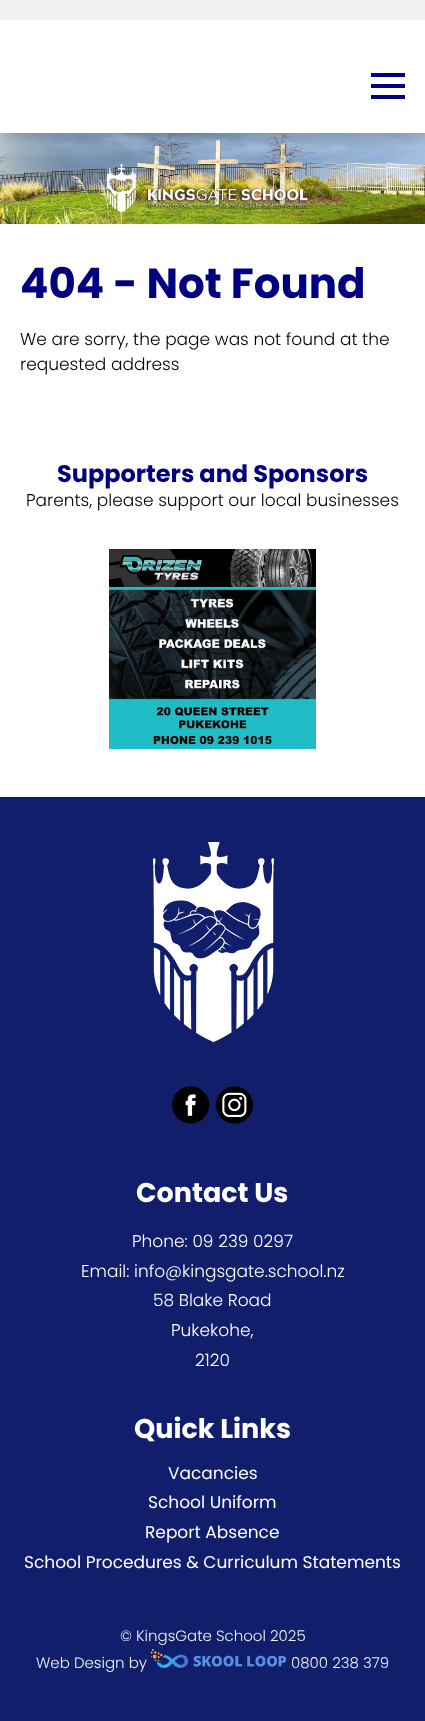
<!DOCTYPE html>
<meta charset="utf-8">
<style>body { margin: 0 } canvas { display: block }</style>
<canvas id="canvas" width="425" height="1721"></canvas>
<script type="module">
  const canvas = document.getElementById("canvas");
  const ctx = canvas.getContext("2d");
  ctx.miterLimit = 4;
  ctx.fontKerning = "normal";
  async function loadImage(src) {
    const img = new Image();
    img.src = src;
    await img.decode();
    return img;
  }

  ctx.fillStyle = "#ffffff";
  ctx.fillRect(0, 0, 425, 1721);
  ctx.drawImage(await loadImage("img1.png"), 0, 133, 425, 91);
  ctx.save();
  ctx.beginPath();
  ctx.rect(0, 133, 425, 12);
  ctx.clip();
  ctx.fillStyle = "rgba(0, 0, 0, 0.2)";
  ctx.filter = "blur(7.5px)";
  ctx.beginPath();
  ctx.rect(0, 2, 425, 133);
  ctx.fill();
  ctx.filter = "none";
  ctx.restore();
  ctx.fillStyle = "#f1f1f1";
  ctx.fillRect(0, 0, 425, 20);
  ctx.fillStyle = "#000080";
  ctx.fillRect(371, 73, 34, 4);
  ctx.fillRect(371, 84, 34, 4);
  ctx.fillRect(371, 95, 34, 4);
  ctx.font = "bold 42px Poppins";
  ctx.fillText("404 - Not Found", 20, 298);
  ctx.font = "300 17px Poppins";
  ctx.fillStyle = "#000000";
  ctx.fillText("We are sorry, the page was not found at the", 20, 345);
  ctx.fillText("requested address", 20, 370);
  ctx.font = "bold 24px Poppins";
  ctx.fillStyle = "#000080";
  ctx.fillText("Supporters and Sponsors", 57, 482);
  ctx.font = "300 17px Poppins";
  ctx.fillStyle = "#000000";
  ctx.fillText("Parents, please support our local businesses", 26, 506);
  ctx.drawImage(await loadImage("img2.png"), 109, 549, 207, 200);
  ctx.fillStyle = "#111e6c";
  ctx.fillRect(0, 797, 425, 924);
  ctx.drawImage(await loadImage("img3.png"), 153, 842, 121, 200);
  ctx.drawImage(await loadImage("img4.png"), 172, 1086, 38, 38);
  ctx.drawImage(await loadImage("img5.png"), 215, 1086, 38, 38);
  ctx.font = "bold 27px Poppins";
  ctx.fillStyle = "#ffffff";
  ctx.fillText("Contact Us", 136, 1202);
  ctx.font = "300 17px Poppins";
  ctx.fillText("Phone: 09 239 0297", 132, 1247);
  ctx.fillText("Email: info@kingsgate.school.nz", 81, 1277);
  ctx.fillText("58 Blake Road", 153, 1306);
  ctx.fillText("Pukekohe,", 171, 1336);
  ctx.fillText("2120", 195, 1366);
  ctx.font = "bold 27px Poppins";
  ctx.fillText("Quick Links", 134, 1438);
  ctx.font = "17px Poppins";
  ctx.fillText("Vacancies", 168, 1479);
  ctx.fillText("School Uniform", 148, 1508);
  ctx.fillText("Report Absence", 145, 1538);
  ctx.fillText("School Procedures & Curriculum Statements", 24, 1568);
  ctx.font = "300 15px Poppins";
  ctx.fillStyle = "#f1f1f1";
  ctx.fillText("© KingsGate School 2025", 120, 1641);
  ctx.fillText("Web Design by", 36, 1668);
  ctx.drawImage(await loadImage("img6.png"), 151, 1649, 135, 19);
  ctx.fillText("0800 238 379", 291, 1668);
</script>
